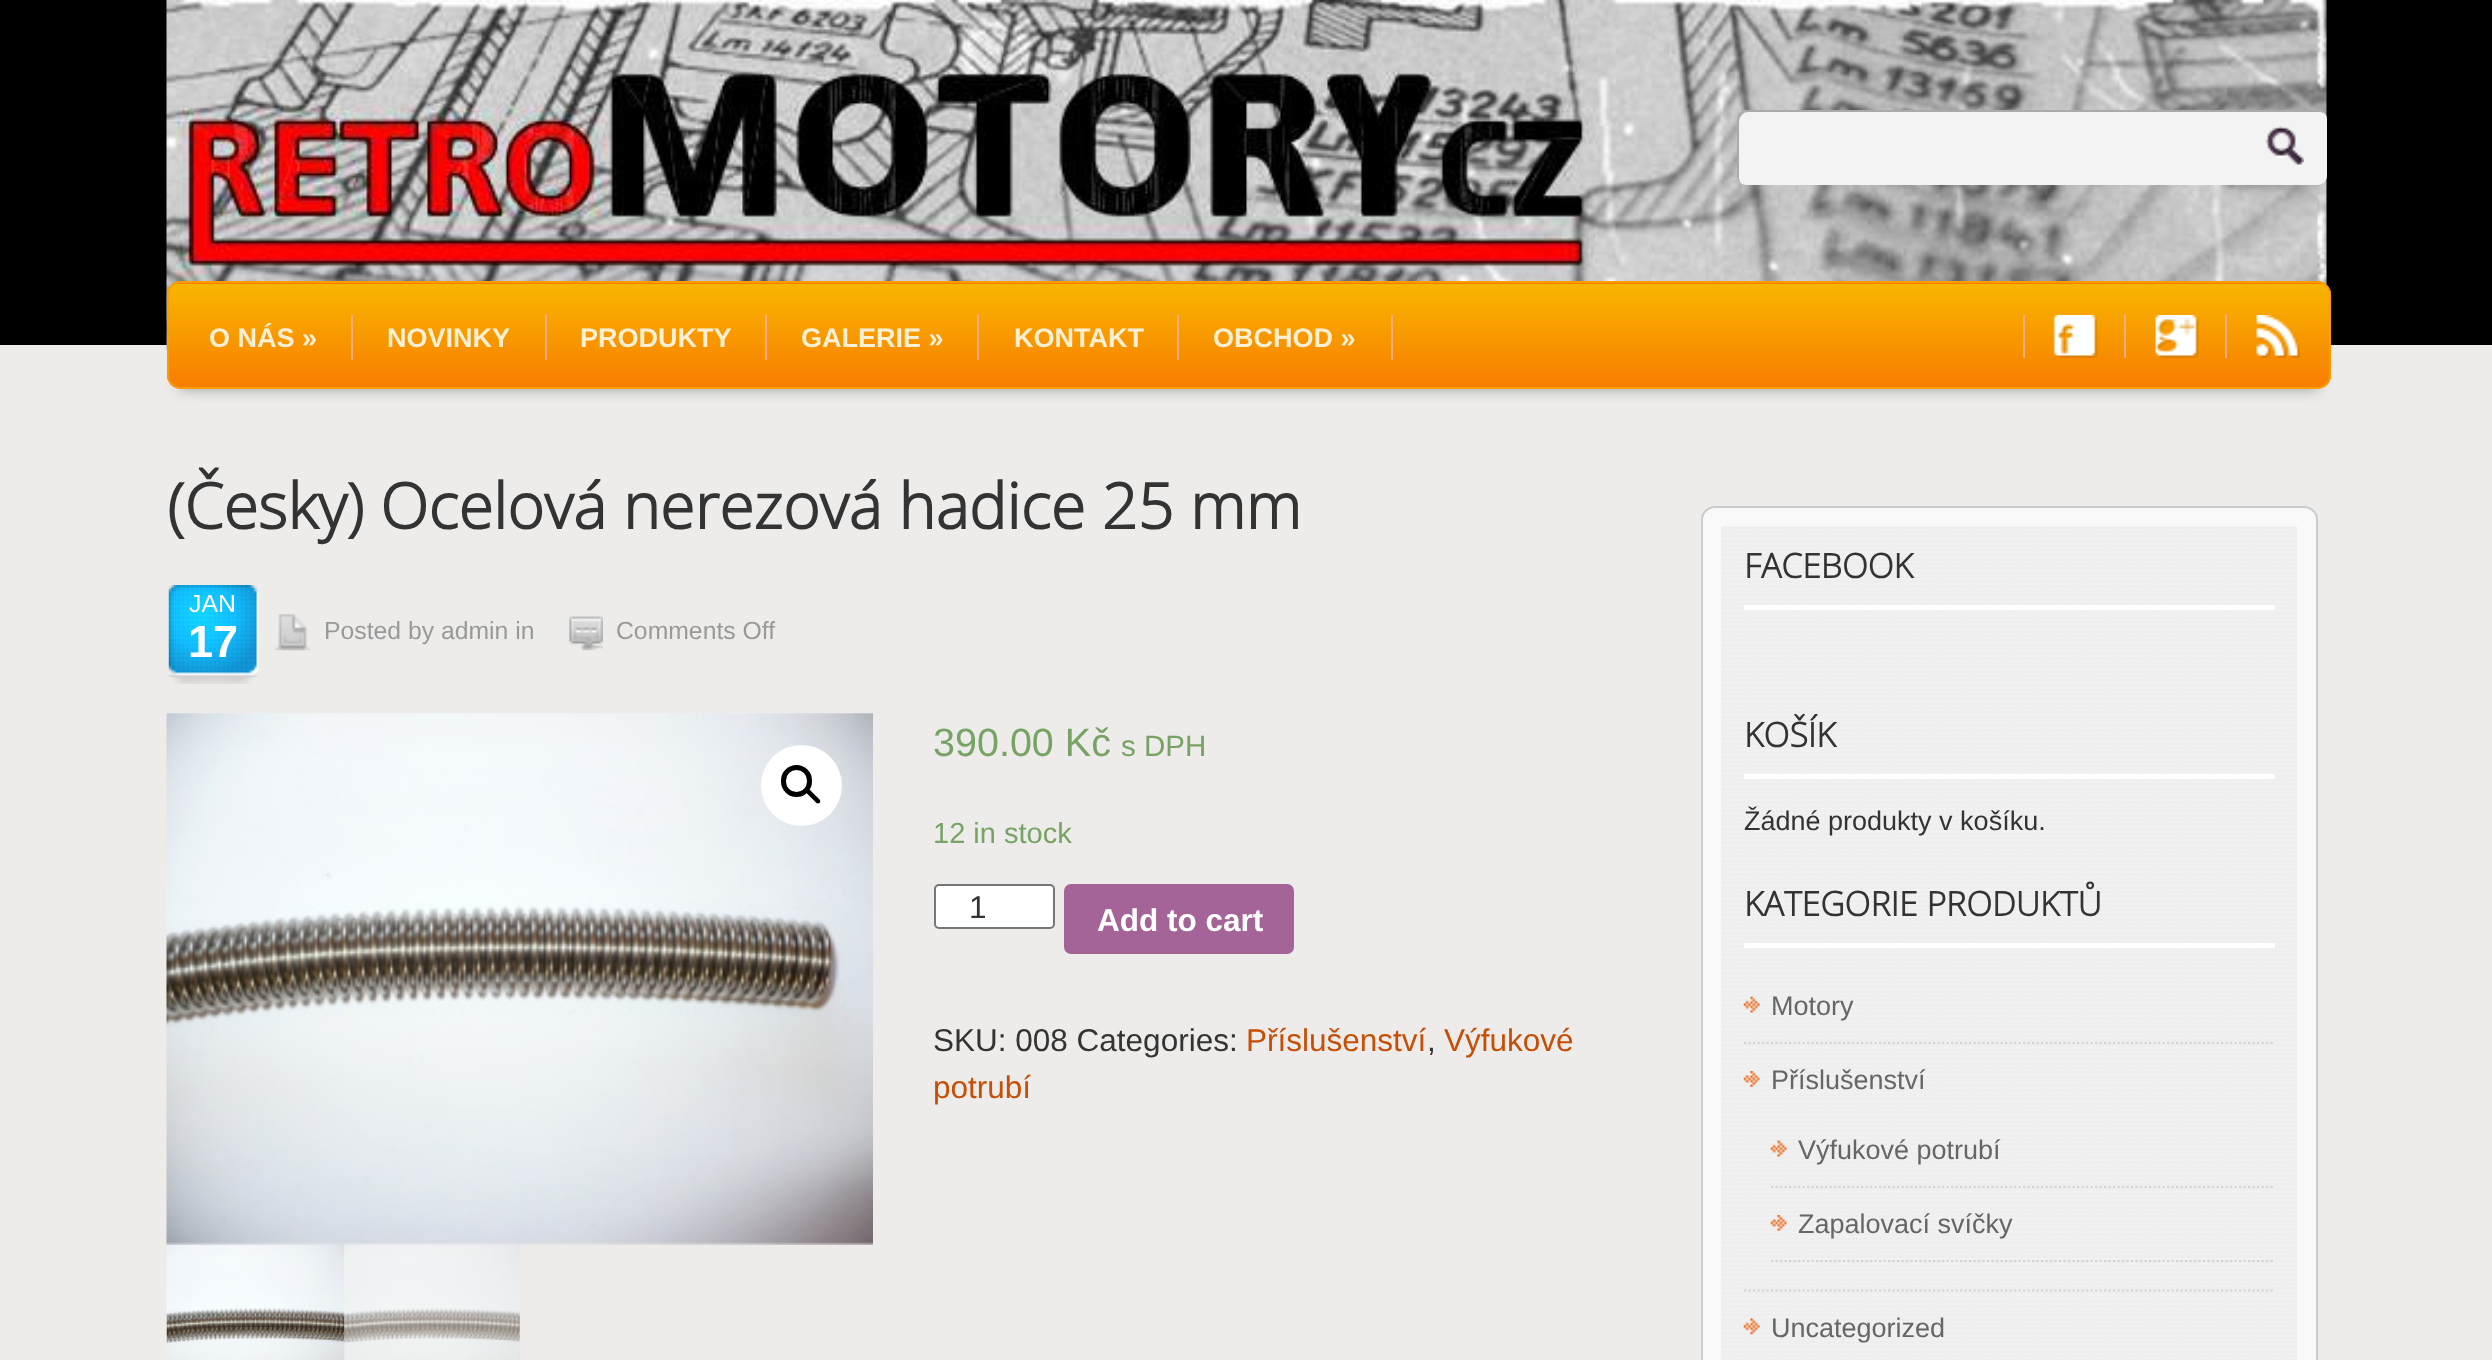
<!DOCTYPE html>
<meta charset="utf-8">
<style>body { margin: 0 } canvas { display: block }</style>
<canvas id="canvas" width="2492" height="1360"></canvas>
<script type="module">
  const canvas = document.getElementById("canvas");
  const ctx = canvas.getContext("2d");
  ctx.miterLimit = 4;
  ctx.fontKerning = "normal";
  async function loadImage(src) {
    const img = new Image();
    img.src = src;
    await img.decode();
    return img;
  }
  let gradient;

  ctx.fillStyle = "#edecea";
  ctx.fillRect(0, 0, 2492, 1360);
  ctx.fillStyle = "#000000";
  ctx.fillRect(0, 0, 2492, 345);
  ctx.drawImage(await loadImage("img1.png"), 166, 0, 2161, 354);
  ctx.fillStyle = "#f3f3f3";
  ctx.beginPath();
  ctx.roundRect(1737, 110, 590, 75, 9);
  ctx.fill();
  ctx.drawImage(await loadImage("img2.png"), 2265, 126, 39, 41);
  ctx.fillStyle = "#aaaaaa";
  ctx.beginPath();
  ctx.moveTo(1748, 112);
  ctx.lineTo(2320, 112);
  ctx.bezierCurveTo(2322, 112, 2324, 113, 2326, 115);
  ctx.bezierCurveTo(2324, 112, 2321, 110, 2318, 110);
  ctx.lineTo(1746, 110);
  ctx.bezierCurveTo(1741, 110, 1737, 114, 1737, 119);
  ctx.lineTo(1737, 176);
  ctx.bezierCurveTo(1737, 179, 1738, 182, 1741, 183);
  ctx.bezierCurveTo(1740, 182, 1739, 180, 1739, 178);
  ctx.lineTo(1739, 122);
  ctx.bezierCurveTo(1739, 117, 1743, 112, 1748, 112);
  ctx.closePath();
  ctx.fill();
  ctx.fillStyle = "#999999";
  ctx.filter = "blur(7px)";
  ctx.beginPath();
  ctx.rect(180, 308, 2138, 81);
  ctx.fill();
  ctx.filter = "none";
  ctx.save();
  ctx.beginPath();
  ctx.roundRect(167, 281, 2164, 108, 14);
  ctx.clip();
  gradient = ctx.createLinearGradient(1249, 180, 1249, 284);
  gradient.addColorStop(0, "#f8b600");
  gradient.addColorStop(1, "#f87d00");
  ctx.fillStyle = gradient;
  ctx.fillRect(167, 281, 2164, 3);
  gradient = ctx.createLinearGradient(1249, 283, 1249, 387);
  gradient.addColorStop(0, "#f8b600");
  gradient.addColorStop(1, "#f87d00");
  ctx.fillStyle = gradient;
  ctx.fillRect(167, 284, 2164, 103);
  ctx.restore();
  ctx.beginPath();
  ctx.roundRect(168, 282, 2162, 106, 13);
  ctx.strokeStyle = "#f89d03";
  ctx.lineWidth = 2;
  ctx.stroke();
  ctx.fillStyle = "#f5ae84";
  ctx.fillRect(351, 315, 2, 45);
  ctx.font = "bold 27px Liberation Sans";
  ctx.fillStyle = "#fcf0d4";
  ctx.fillText("O NÁS »", 209, 347);
  ctx.fillStyle = "#f5ae84";
  ctx.fillRect(545, 315, 2, 45);
  ctx.fillStyle = "#fcf0d4";
  ctx.fillText("NOVINKY", 387, 347);
  ctx.fillStyle = "#f5ae84";
  ctx.fillRect(765, 315, 2, 45);
  ctx.fillStyle = "#fcf0d4";
  ctx.fillText("PRODUKTY", 580, 347);
  ctx.fillStyle = "#f5ae84";
  ctx.fillRect(977, 315, 2, 45);
  ctx.fillStyle = "#fcf0d4";
  ctx.fillText("GALERIE »", 801, 347);
  ctx.fillStyle = "#f5ae84";
  ctx.fillRect(1177, 315, 2, 45);
  ctx.fillStyle = "#fcf0d4";
  ctx.fillText("KONTAKT", 1014, 347);
  ctx.fillStyle = "#f5ae84";
  ctx.fillRect(1391, 315, 2, 45);
  ctx.fillStyle = "#fcf0d4";
  ctx.fillText("OBCHOD »", 1213, 347);
  ctx.fillStyle = "#f5ae84";
  ctx.fillRect(2023, 315, 2, 43);
  ctx.drawImage(await loadImage("img3.png"), 2053, 315, 45, 43);
  ctx.fillRect(2124, 315, 2, 43);
  ctx.drawImage(await loadImage("img4.png"), 2155, 315, 44, 43);
  ctx.fillRect(2225, 315, 2, 43);
  ctx.drawImage(await loadImage("img5.png"), 2256, 315, 44, 43);
  ctx.font = "bold 63px Open Sans";
  ctx.fillStyle = "#333333";
  ctx.fillText("(Česky) Ocelová nerezová hadice 25 mm", 167, 529);
  ctx.drawImage(await loadImage("img6.png"), 168, 585, 91, 99);
  ctx.font = "24.75px Liberation Sans";
  ctx.fillStyle = "#ffffff";
  ctx.fillText("JAN", 189, 612);
  ctx.font = "bold 45px Liberation Sans";
  ctx.fillText("17", 188, 657);
  ctx.drawImage(await loadImage("img7.png"), 274, 614, 37, 37);
  ctx.font = "24.75px Liberation Sans";
  ctx.fillStyle = "#999999";
  ctx.fillText("Posted by admin in", 324, 639);
  ctx.drawImage(await loadImage("img8.png"), 569, 616, 34, 35);
  ctx.fillText("Comments Off", 616, 639);
  ctx.drawImage(await loadImage("img10.png"), 166, 1244, 179, 116);
  ctx.drawImage(await loadImage("img9.png"), 166, 713, 707, 532);
  ctx.fillStyle = "#ffffff";
  ctx.beginPath();
  ctx.arc(801.5, 785.5, 40.5, 0, Math.PI * 2);
  ctx.fill();
  ctx.beginPath();
  ctx.roundRect(783.5, 767.5, 26, 27, 13);
  ctx.strokeStyle = "#000000";
  ctx.lineWidth = 5;
  ctx.stroke();
  ctx.fillStyle = "#000000";
  ctx.beginPath();
  ctx.moveTo(807, 790);
  ctx.bezierCurveTo(807.5, 789.5, 809, 789.5, 810, 790);
  ctx.lineTo(819.5, 799.5);
  ctx.bezierCurveTo(820.5, 800.5, 820.5, 802, 819.5, 803);
  ctx.bezierCurveTo(818.5, 803.5, 817, 803.5, 816.5, 803);
  ctx.lineTo(807, 793.5);
  ctx.bezierCurveTo(806, 792.5, 806, 791, 807, 790);
  ctx.closePath();
  ctx.fill();
  ctx.drawImage(await loadImage("img11.png"), 344, 1244, 176, 116);
  ctx.font = "39.5px Liberation Sans";
  ctx.fillStyle = "#77a464";
  ctx.fillText("390.00 Kč", 933, 756);
  ctx.font = "29.5px Liberation Sans";
  ctx.fillText("s DPH", 1121, 756);
  ctx.font = "29px Liberation Sans";
  ctx.fillText("12 in stock", 933, 843);
  ctx.fillStyle = "#ffffff";
  ctx.beginPath();
  ctx.roundRect(935, 885, 119, 43, 4);
  ctx.fill();
  ctx.strokeStyle = "#767676";
  ctx.lineWidth = 2;
  ctx.stroke();
  ctx.font = "31.5px Liberation Sans";
  ctx.fillStyle = "#333333";
  ctx.fillText("1", 969, 918);
  ctx.fillStyle = "#a46497";
  ctx.beginPath();
  ctx.roundRect(1064, 884, 230, 70, 7);
  ctx.fill();
  ctx.font = "bold 31.5px Liberation Sans";
  ctx.fillStyle = "#ffffff";
  ctx.fillText("Add to cart", 1097, 931);
  ctx.font = "31.5px Liberation Sans";
  ctx.fillStyle = "#333333";
  ctx.fillText("SKU: 008 Categories:", 933, 1051);
  ctx.fillStyle = "#c64f07";
  ctx.fillText("Příslušenství", 1246, 1051);
  ctx.fillStyle = "#333333";
  ctx.fillText(",", 1427, 1051);
  ctx.fillStyle = "#c64f07";
  ctx.fillText("Výfukové", 1444, 1051);
  ctx.fillText("potrubí", 933, 1098);
  ctx.fillStyle = "#f9f9f9";
  ctx.beginPath();
  ctx.roundRect(1702, 507, 615, 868, 13);
  ctx.fill();
  ctx.strokeStyle = "#cccccc";
  ctx.stroke();
  ctx.drawImage(await loadImage("img12.png"), 1721, 526, 576, 834);
  ctx.fillStyle = "#ffffff";
  ctx.fillRect(1744, 605, 531, 5);
  ctx.font = "bold 33.75px Open Sans";
  ctx.fillStyle = "#333333";
  ctx.fillText("FACEBOOK", 1744, 578);
  ctx.fillStyle = "#ffffff";
  ctx.fillRect(1744, 774, 531, 5);
  ctx.fillStyle = "#333333";
  ctx.fillText("KOŠÍK", 1744, 747);
  ctx.font = "27px Liberation Sans";
  ctx.fillText("Žádné produkty v košíku.", 1744, 830);
  ctx.fillStyle = "#ffffff";
  ctx.fillRect(1744, 943, 531, 5);
  ctx.font = "bold 33.75px Open Sans";
  ctx.fillStyle = "#333333";
  ctx.fillText("KATEGORIE PRODUKTŮ", 1744, 916);
  ctx.drawImage(await loadImage("img13.png"), 1743, 996, 17, 17);
  ctx.beginPath();
  ctx.moveTo(1744, 1043);
  ctx.lineTo(2275, 1043);
  ctx.strokeStyle = "#d1d1d1";
  ctx.lineWidth = 2.2;
  ctx.setLineDash([2.25, 2.25]);
  ctx.stroke();
  ctx.font = "27px Liberation Sans";
  ctx.fillStyle = "#666666";
  ctx.fillText("Motory", 1771, 1015);
  ctx.drawImage(await loadImage("img14.png"), 1743, 1071, 17, 16);
  ctx.beginPath();
  ctx.moveTo(1744, 1290.5);
  ctx.lineTo(2275, 1290.5);
  ctx.stroke();
  ctx.fillText("Příslušenství", 1771, 1089);
  ctx.drawImage(await loadImage("img13.png"), 1770, 1140, 17, 17);
  ctx.beginPath();
  ctx.moveTo(1771, 1187);
  ctx.lineTo(2275, 1187);
  ctx.stroke();
  ctx.fillText("Výfukové potrubí", 1798, 1159);
  ctx.drawImage(await loadImage("img14.png"), 1770, 1215, 17, 16);
  ctx.beginPath();
  ctx.moveTo(1771, 1261);
  ctx.lineTo(2275, 1261);
  ctx.stroke();
  ctx.fillText("Zapalovací svíčky", 1798, 1233);
  ctx.drawImage(await loadImage("img15.png"), 1743, 1318, 17, 17);
  ctx.fillText("Uncategorized", 1771, 1337);
</script>
